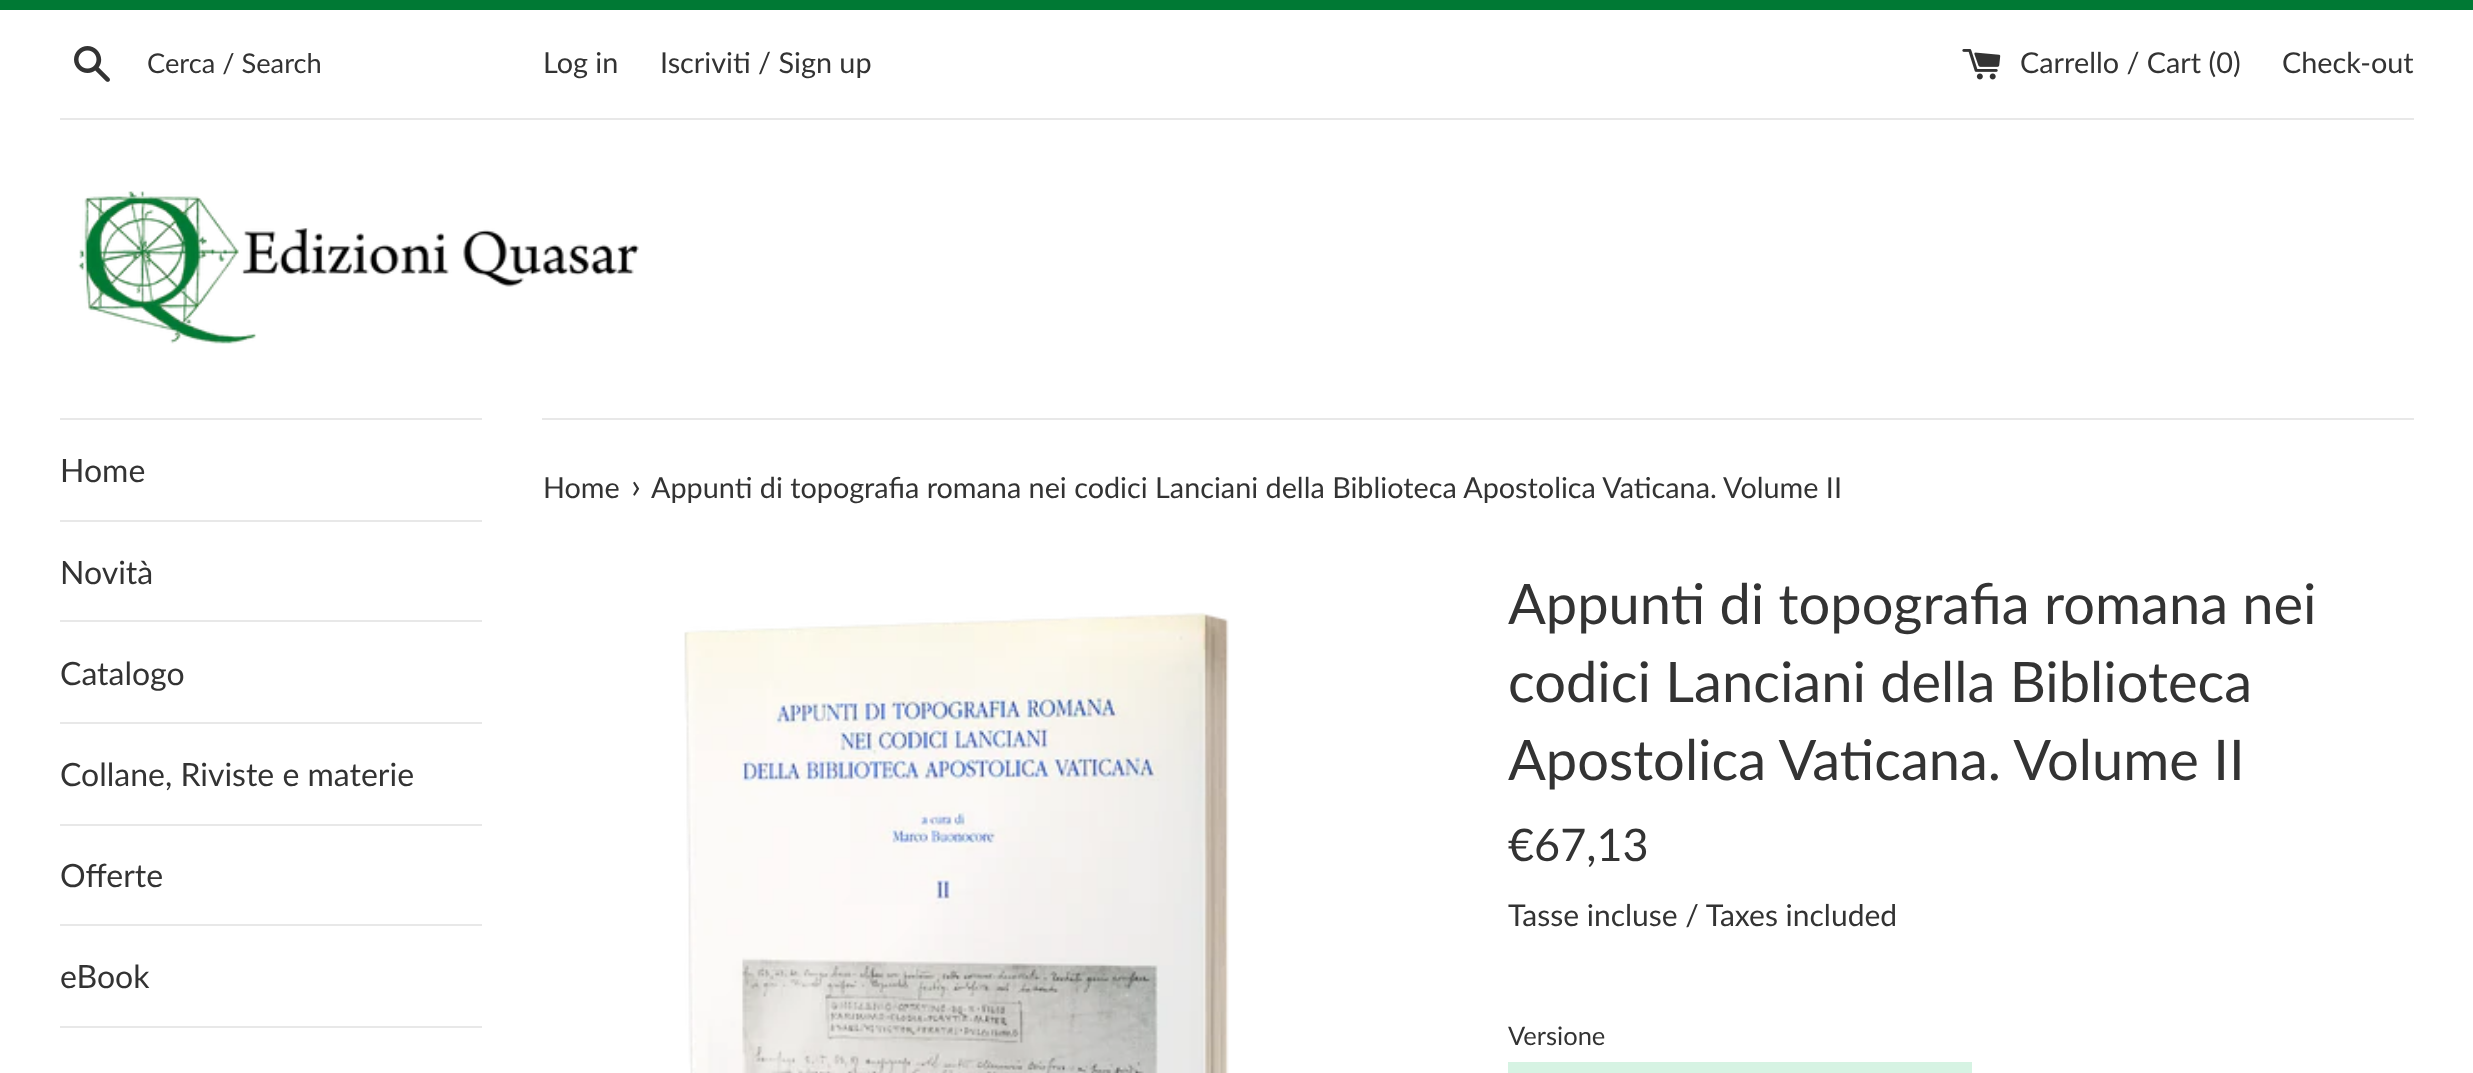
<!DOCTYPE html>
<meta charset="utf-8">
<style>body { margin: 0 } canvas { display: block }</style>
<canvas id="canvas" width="2473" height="1073"></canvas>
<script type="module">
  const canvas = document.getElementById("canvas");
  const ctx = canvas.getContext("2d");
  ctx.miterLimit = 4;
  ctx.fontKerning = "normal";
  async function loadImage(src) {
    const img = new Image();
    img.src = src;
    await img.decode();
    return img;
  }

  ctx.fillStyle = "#ffffff";
  ctx.fillRect(0, 0, 2473, 1073);
  ctx.fillStyle = "#007934";
  ctx.fillRect(0, 0, 2473, 10);
  ctx.drawImage(await loadImage("img1.png"), 74, 46, 36, 36);
  ctx.font = "27.25px Lato";
  ctx.fillStyle = "#333333";
  ctx.fillText("Cerca / Search", 147, 73);
  ctx.font = "28.8px Lato";
  ctx.fillText("Log in", 543, 73);
  ctx.fillText("Iscriviti / Sign up", 660, 73);
  ctx.drawImage(await loadImage("img2.png"), 1962, 49, 39, 31);
  ctx.fillText("Carrello / Cart (0)", 2020, 73);
  ctx.fillText("Check-out", 2282, 73);
  ctx.fillStyle = "#e8e8e8";
  ctx.fillRect(60, 118, 2354, 2);
  ctx.drawImage(await loadImage("img3.png"), 78, 191, 561, 153);
  ctx.fillRect(60, 418, 422, 2);
  ctx.fillRect(60, 520, 422, 2);
  ctx.font = "32px Lato";
  ctx.fillStyle = "#333333";
  ctx.fillText("Home", 60, 482);
  ctx.fillStyle = "#e8e8e8";
  ctx.fillRect(60, 620, 422, 2);
  ctx.fillStyle = "#333333";
  ctx.fillText("Novità", 60, 584);
  ctx.fillStyle = "#e8e8e8";
  ctx.fillRect(60, 722, 422, 2);
  ctx.fillStyle = "#333333";
  ctx.fillText("Catalogo", 60, 685);
  ctx.fillStyle = "#e8e8e8";
  ctx.fillRect(60, 824, 422, 2);
  ctx.fillStyle = "#333333";
  ctx.fillText("Collane, Riviste e materie", 60, 786);
  ctx.fillStyle = "#e8e8e8";
  ctx.fillRect(60, 924, 422, 2);
  ctx.fillStyle = "#333333";
  ctx.fillText("Offerte", 60, 887);
  ctx.fillStyle = "#e8e8e8";
  ctx.fillRect(60, 1026, 422, 2);
  ctx.fillStyle = "#333333";
  ctx.fillText("eBook", 60, 988);
  ctx.fillStyle = "#e8e8e8";
  ctx.fillRect(542, 418, 1872, 2);
  ctx.font = "28.8px Lato";
  ctx.fillStyle = "#333333";
  ctx.fillText("Home", 543, 498);
  ctx.font = "35px Lato";
  ctx.fillText("›", 631, 498);
  ctx.font = "28.8px Lato";
  ctx.fillText("Appunti di topografia romana nei codici Lanciani della Biblioteca Apostolica Vaticana. Volume II", 651, 498);
  ctx.drawImage(await loadImage("img4.png"), 684, 612, 545, 461);
  ctx.font = "56px Lato";
  ctx.fillText("Appunti di topografia romana nei", 1508, 624);
  ctx.fillText("codici Lanciani della Biblioteca", 1508, 702);
  ctx.fillText("Apostolica Vaticana. Volume II", 1508, 780);
  ctx.font = "45px Lato";
  ctx.fillText("€67,13", 1508, 861);
  ctx.font = "30px Lato";
  ctx.fillText("Tasse incluse / Taxes included", 1508, 926);
  ctx.font = "25.5px Lato";
  ctx.fillText("Versione", 1508, 1045);
  ctx.fillStyle = "#d6f3e3";
  ctx.fillRect(1508, 1062, 464, 11);
</script>
